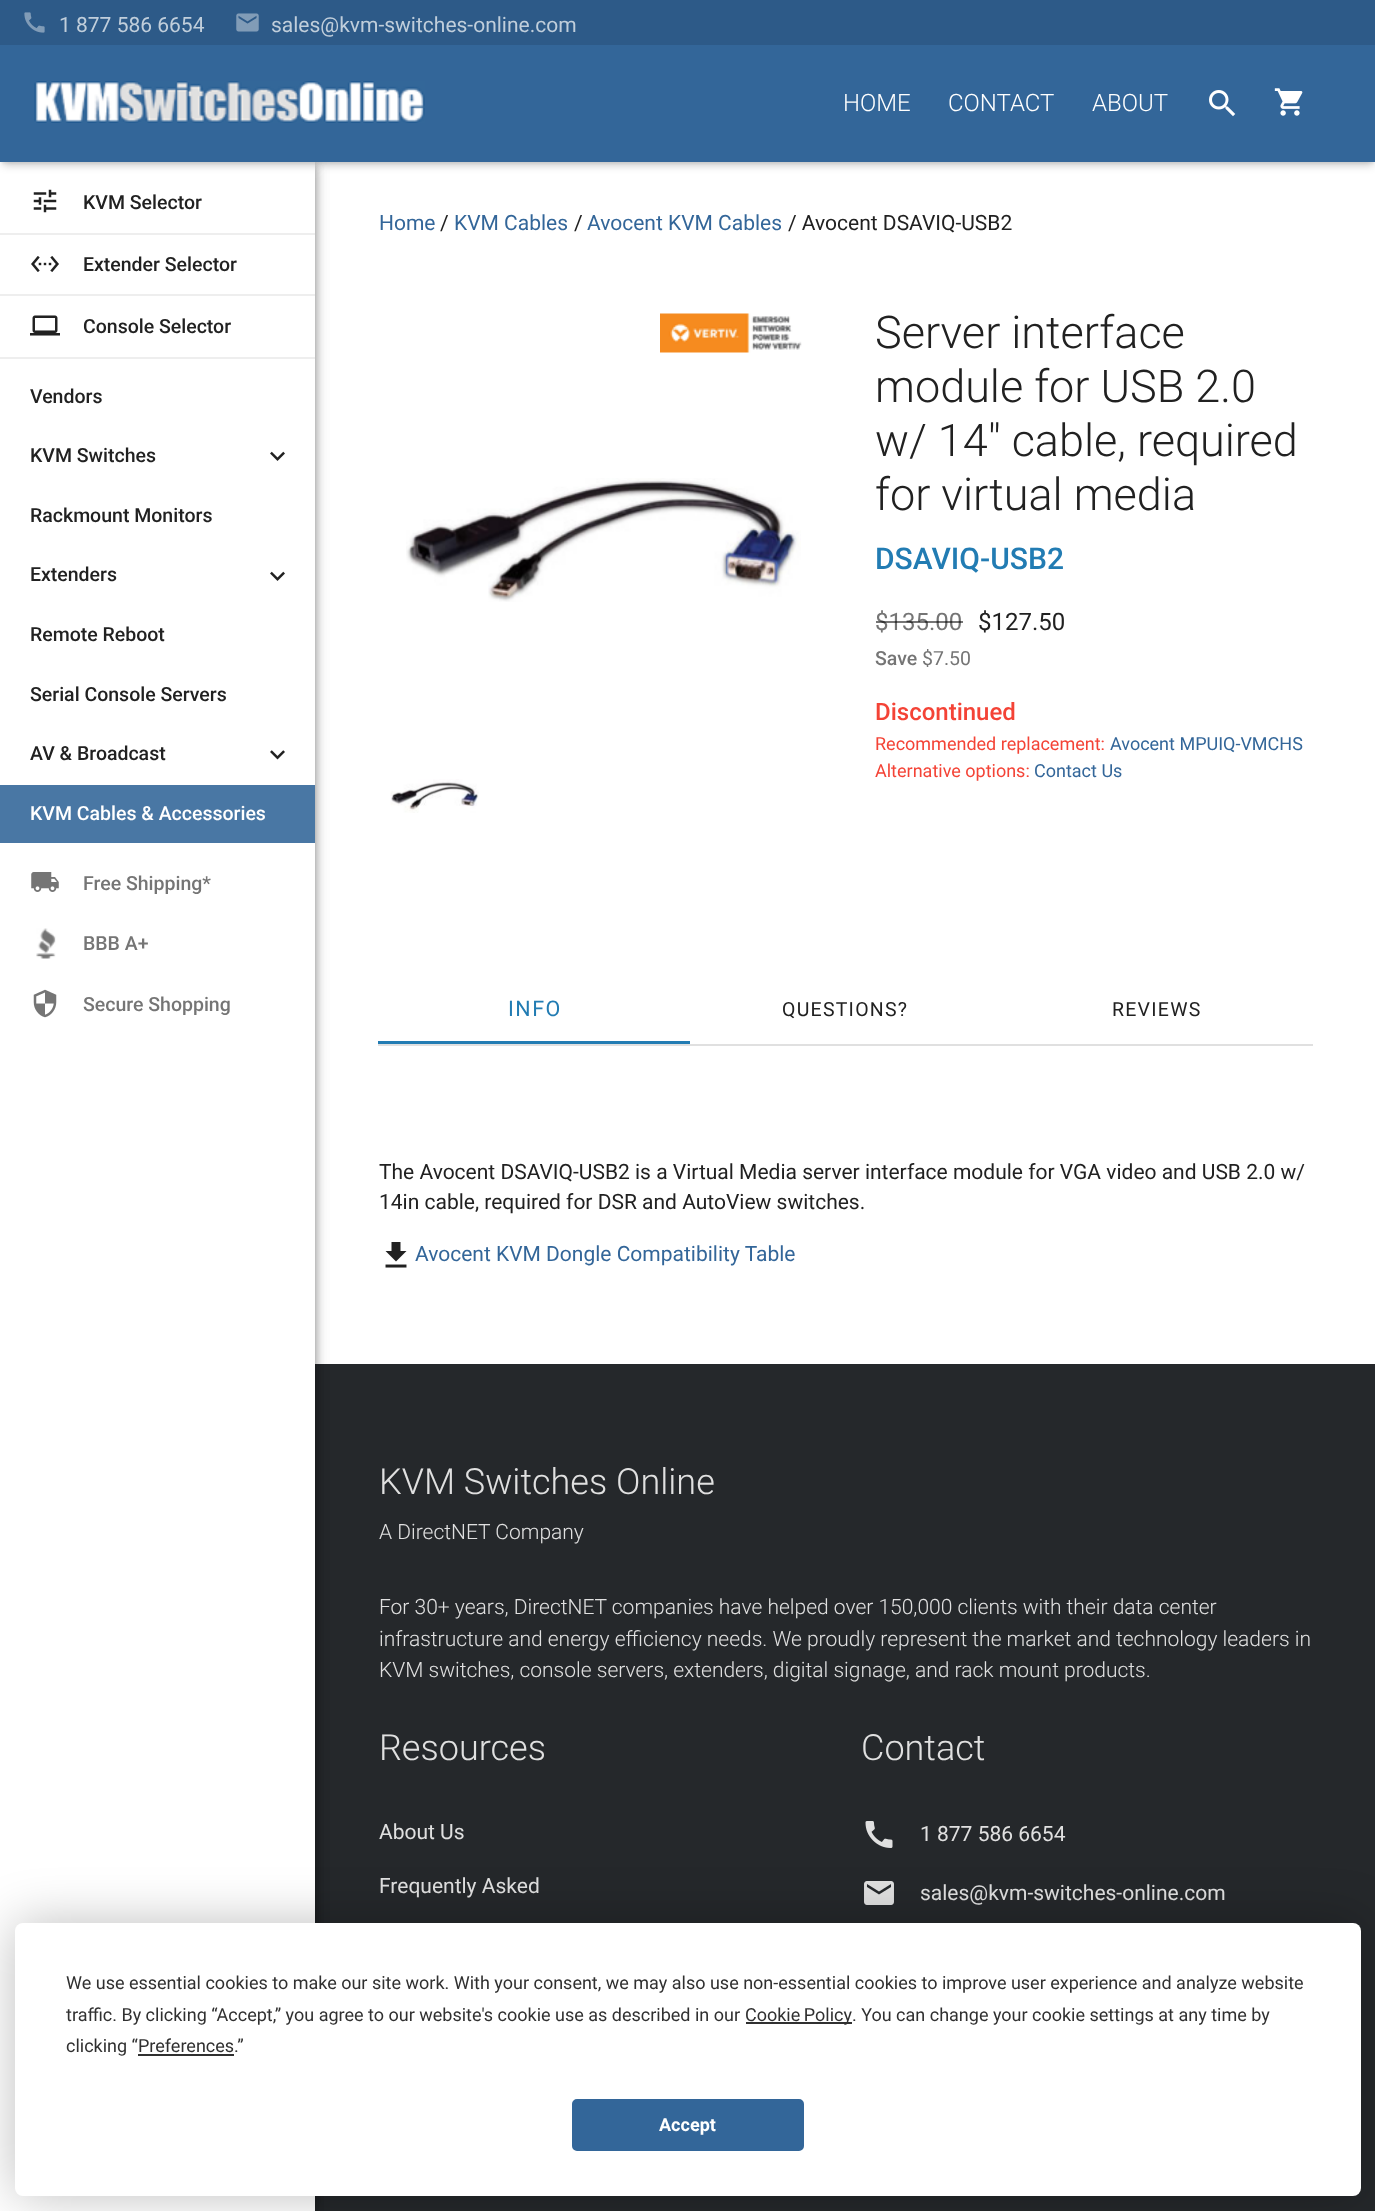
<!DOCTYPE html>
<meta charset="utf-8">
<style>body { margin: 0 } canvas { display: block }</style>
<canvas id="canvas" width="1375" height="2211"></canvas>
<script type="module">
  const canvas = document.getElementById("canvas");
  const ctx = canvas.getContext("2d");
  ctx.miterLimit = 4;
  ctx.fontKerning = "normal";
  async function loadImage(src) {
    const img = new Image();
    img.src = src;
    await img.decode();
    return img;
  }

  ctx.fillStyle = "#25282b";
  ctx.fillRect(0, 0, 1375, 2211);
  ctx.fillStyle = "#ffffff";
  ctx.fillRect(315, 162, 1060, 1202);
  ctx.fillStyle = "rgba(0, 0, 0, 0.12)";
  ctx.filter = "blur(7.5px)";
  ctx.beginPath();
  ctx.rect(0, 165, 315, 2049);
  ctx.fill();
  ctx.filter = "none";
  ctx.fillStyle = "rgba(0, 0, 0, 0.16)";
  ctx.filter = "blur(4px)";
  ctx.beginPath();
  ctx.rect(0, 165, 315, 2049);
  ctx.fill();
  ctx.filter = "none";
  ctx.fillStyle = "rgba(0, 0, 0, 0.12)";
  ctx.filter = "blur(7.5px)";
  ctx.beginPath();
  ctx.rect(0, 165, 315, 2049);
  ctx.fill();
  ctx.filter = "none";
  ctx.fillStyle = "rgba(0, 0, 0, 0.16)";
  ctx.filter = "blur(4px)";
  ctx.beginPath();
  ctx.rect(0, 165, 315, 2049);
  ctx.fill();
  ctx.filter = "none";
  ctx.fillStyle = "#ffffff";
  ctx.fillRect(0, 162, 315, 2049);
  ctx.fillStyle = "rgba(0, 0, 0, 0.05)";
  ctx.filter = "blur(1px)";
  ctx.beginPath();
  ctx.rect(2, 5, 1372, 159);
  ctx.fill();
  ctx.filter = "none";
  ctx.fillStyle = "rgba(0, 0, 0, 0.22)";
  ctx.filter = "blur(4px)";
  ctx.beginPath();
  ctx.rect(3, 9, 1370, 156);
  ctx.fill();
  ctx.filter = "none";
  ctx.fillStyle = "#336699";
  ctx.fillRect(0, 45, 1375, 117);
  ctx.fillStyle = "#2d5a88";
  ctx.fillRect(0, 0, 1375, 45);
  ctx.drawImage(await loadImage("img1.png"), 24, 12, 21, 21);
  ctx.font = "21px Roboto";
  ctx.fillStyle = "#c0cedb";
  ctx.fillText("1 877 586 6654", 59, 32);
  ctx.drawImage(await loadImage("img2.png"), 236, 13, 23, 19);
  ctx.fillText("sales@kvm-switches-online.com", 271, 32);
  ctx.drawImage(await loadImage("img3.png"), 34, 81, 391, 42);
  ctx.font = "300 24px Roboto";
  ctx.fillStyle = "#ffffff";
  ctx.fillText("HOME", 843, 111);
  ctx.fillText("CONTACT", 948, 111);
  ctx.fillText("ABOUT", 1092, 111);
  ctx.drawImage(await loadImage("img4.png"), 1209, 90, 27, 27);
  ctx.drawImage(await loadImage("img5.png"), 1274, 88, 29, 28);
  ctx.fillStyle = "#eeeeee";
  ctx.fillRect(0, 233, 315, 2);
  ctx.drawImage(await loadImage("img6.png"), 33, 189, 24, 24);
  ctx.font = "500 19.5px Roboto";
  ctx.fillStyle = "#212121";
  ctx.fillText("KVM Selector", 83, 209);
  ctx.fillStyle = "#eeeeee";
  ctx.fillRect(0, 294, 315, 2);
  ctx.drawImage(await loadImage("img7.png"), 31, 256, 28, 16);
  ctx.fillStyle = "#212121";
  ctx.fillText("Extender Selector", 83, 271);
  ctx.fillStyle = "#eeeeee";
  ctx.fillRect(0, 357, 315, 2);
  ctx.drawImage(await loadImage("img8.png"), 30, 315, 30, 21);
  ctx.fillStyle = "#212121";
  ctx.fillText("Console Selector", 83, 333);
  ctx.fillText("Vendors", 30, 403);
  ctx.fillText("KVM Switches", 30, 462);
  ctx.drawImage(await loadImage("img9.png"), 270, 451, 15, 10);
  ctx.fillText("Rackmount Monitors", 30, 522);
  ctx.fillText("Extenders", 30, 581);
  ctx.drawImage(await loadImage("img9.png"), 270, 571, 15, 10);
  ctx.fillText("Remote Reboot", 30, 641);
  ctx.fillText("Serial Console Servers", 30, 701);
  ctx.fillText("AV & Broadcast", 30, 760);
  ctx.drawImage(await loadImage("img10.png"), 270, 750, 15, 10);
  ctx.fillStyle = "#4977a4";
  ctx.fillRect(0, 785, 315, 58);
  ctx.fillStyle = "#ffffff";
  ctx.fillText("KVM Cables & Accessories", 30, 820);
  ctx.drawImage(await loadImage("img11.png"), 31, 872, 28, 20);
  ctx.fillStyle = "#757575";
  ctx.fillText("Free Shipping*", 83, 890);
  ctx.drawImage(await loadImage("img12.png"), 36, 928, 20, 31);
  ctx.fillText("BBB A+", 83, 950);
  ctx.drawImage(await loadImage("img13.png"), 33, 989, 24, 29);
  ctx.fillText("Secure Shopping", 83, 1011);
  ctx.font = "21px Roboto";
  ctx.fillStyle = "#336699";
  ctx.fillText("Home", 379, 230);
  ctx.fillStyle = "#212121";
  ctx.fillText("/", 440, 230);
  ctx.fillStyle = "#336699";
  ctx.fillText("KVM Cables", 454, 230);
  ctx.fillStyle = "#212121";
  ctx.fillText("/", 574, 230);
  ctx.fillStyle = "#336699";
  ctx.fillText("Avocent KVM Cables", 587, 230);
  ctx.fillStyle = "#212121";
  ctx.fillText("/ Avocent DSAVIQ-USB2", 788, 230);
  ctx.drawImage(await loadImage("img14.png"), 660, 313, 142, 40);
  ctx.drawImage(await loadImage("img15.png"), 406, 478, 395, 124);
  ctx.drawImage(await loadImage("img16.png"), 390, 779, 89, 34);
  ctx.font = "300 45px Roboto";
  ctx.fillText("Server interface", 875, 348);
  ctx.fillText("module for USB 2.0", 875, 402);
  ctx.fillText("w/ 14\" cable, required", 875, 456);
  ctx.fillText("for virtual media", 875, 510);
  ctx.font = "500 30px Roboto";
  ctx.fillStyle = "#227cb3";
  ctx.fillText("DSAVIQ-USB2", 875, 569);
  ctx.font = "24px Roboto";
  ctx.fillStyle = "#757575";
  ctx.fillText("$135.00", 875, 630);
  ctx.fillStyle = "rgba(0, 0, 0, 0.54)";
  ctx.fillRect(876, 621, 87, 2);
  ctx.fillStyle = "#212121";
  ctx.fillText("$127.50", 978, 630);
  ctx.font = "500 19.5px Roboto";
  ctx.fillStyle = "#757575";
  ctx.fillText("Save", 875, 665);
  ctx.font = "19.5px Roboto";
  ctx.fillText("$7.50", 922, 665);
  ctx.font = "500 24px Roboto";
  ctx.fillStyle = "#f44336";
  ctx.fillText("Discontinued", 875, 720);
  ctx.font = "18px Roboto";
  ctx.fillText("Recommended replacement:", 875, 750);
  ctx.fillStyle = "#336699";
  ctx.fillText("Avocent MPUIQ-VMCHS", 1110, 750);
  ctx.fillStyle = "#f44336";
  ctx.fillText("Alternative options:", 875, 777);
  ctx.fillStyle = "#336699";
  ctx.fillText("Contact Us", 1034, 777);
  ctx.fillStyle = "#e0e0e0";
  ctx.fillRect(378, 1044, 935, 2);
  ctx.letterSpacing = "1.5px";
  ctx.font = "21.5px Roboto";
  ctx.fillStyle = "#227cb3";
  ctx.fillText("INFO", 508, 1016);
  ctx.letterSpacing = "1.25px";
  ctx.font = "19.5px Roboto";
  ctx.fillStyle = "#212121";
  ctx.fillText("QUESTIONS?", 782, 1016);
  ctx.fillText("REVIEWS", 1112, 1016);
  ctx.fillStyle = "#227cb3";
  ctx.fillRect(378, 1041, 312, 3);
  ctx.letterSpacing = "0px";
  ctx.font = "21px Roboto";
  ctx.fillStyle = "#212121";
  ctx.fillText("The Avocent DSAVIQ-USB2 is a Virtual Media server interface module for VGA video and USB 2.0 w/", 379, 1179);
  ctx.fillText("14in cable, required for DSR and AutoView switches.", 379, 1209);
  ctx.drawImage(await loadImage("img17.png"), 385, 1242, 22, 26);
  ctx.fillStyle = "#336699";
  ctx.fillText("Avocent KVM Dongle Compatibility Table", 415, 1261);
  ctx.font = "300 36px Roboto";
  ctx.fillStyle = "#e0e0e0";
  ctx.fillText("KVM Switches Online", 379, 1494);
  ctx.font = "300 21px Roboto";
  ctx.fillText("A DirectNET Company", 379, 1539);
  ctx.fillText("For 30+ years, DirectNET companies have helped over 150,000 clients with their data center", 379, 1614);
  ctx.fillText("infrastructure and energy efficiency needs. We proudly represent the market and technology leaders in", 379, 1646);
  ctx.fillText("KVM switches, console servers, extenders, digital signage, and rack mount products.", 379, 1677);
  ctx.font = "300 36px Roboto";
  ctx.fillText("Resources", 379, 1760);
  ctx.font = "21px Roboto";
  ctx.fillText("About Us", 379, 1839);
  ctx.fillText("Frequently Asked", 379, 1893);
  ctx.font = "300 36px Roboto";
  ctx.fillText("Contact", 861, 1760);
  ctx.drawImage(await loadImage("img18.png"), 865, 1821, 28, 27);
  ctx.font = "21px Roboto";
  ctx.fillText("1 877 586 6654", 920, 1841);
  ctx.drawImage(await loadImage("img19.png"), 864, 1881, 30, 24);
  ctx.fillText("sales@kvm-switches-online.com", 920, 1900);
  ctx.fillStyle = "rgba(0, 0, 0, 0.25)";
  ctx.filter = "blur(26px)";
  ctx.beginPath();
  ctx.roundRect(15, 1923, 1346, 273, 8);
  ctx.fill();
  ctx.filter = "none";
  ctx.fillStyle = "#ffffff";
  ctx.beginPath();
  ctx.roundRect(15, 1923, 1346, 273, 8);
  ctx.fill();
  ctx.font = "18px Roboto";
  ctx.fillStyle = "#303030";
  ctx.fillText("We use essential cookies to make our site work. With your consent, we may also use non-essential cookies to improve user experience and analyze website", 66, 1989);
  ctx.fillText("traffic. By clicking “Accept,” you agree to our website's cookie use as described in our", 66, 2021);
  ctx.fillRect(746, 2022, 106, 2);
  ctx.wordSpacing = "-1px";
  ctx.fillText("Cookie Policy", 745, 2021);
  ctx.wordSpacing = "0px";
  ctx.fillText(". You can change your cookie settings at any time by", 852, 2021);
  ctx.fillText("clicking “Preferences.”", 66, 2052);
  ctx.fillRect(138, 2054, 96, 2);
  ctx.fillStyle = "#336699";
  ctx.beginPath();
  ctx.roundRect(573, 2100, 230, 50, 4);
  ctx.fill();
  ctx.strokeStyle = "#336699";
  ctx.lineWidth = 2;
  ctx.stroke();
  ctx.font = "bold 18px Roboto";
  ctx.fillStyle = "#ffffff";
  ctx.fillText("Accept", 659, 2131);
</script>
